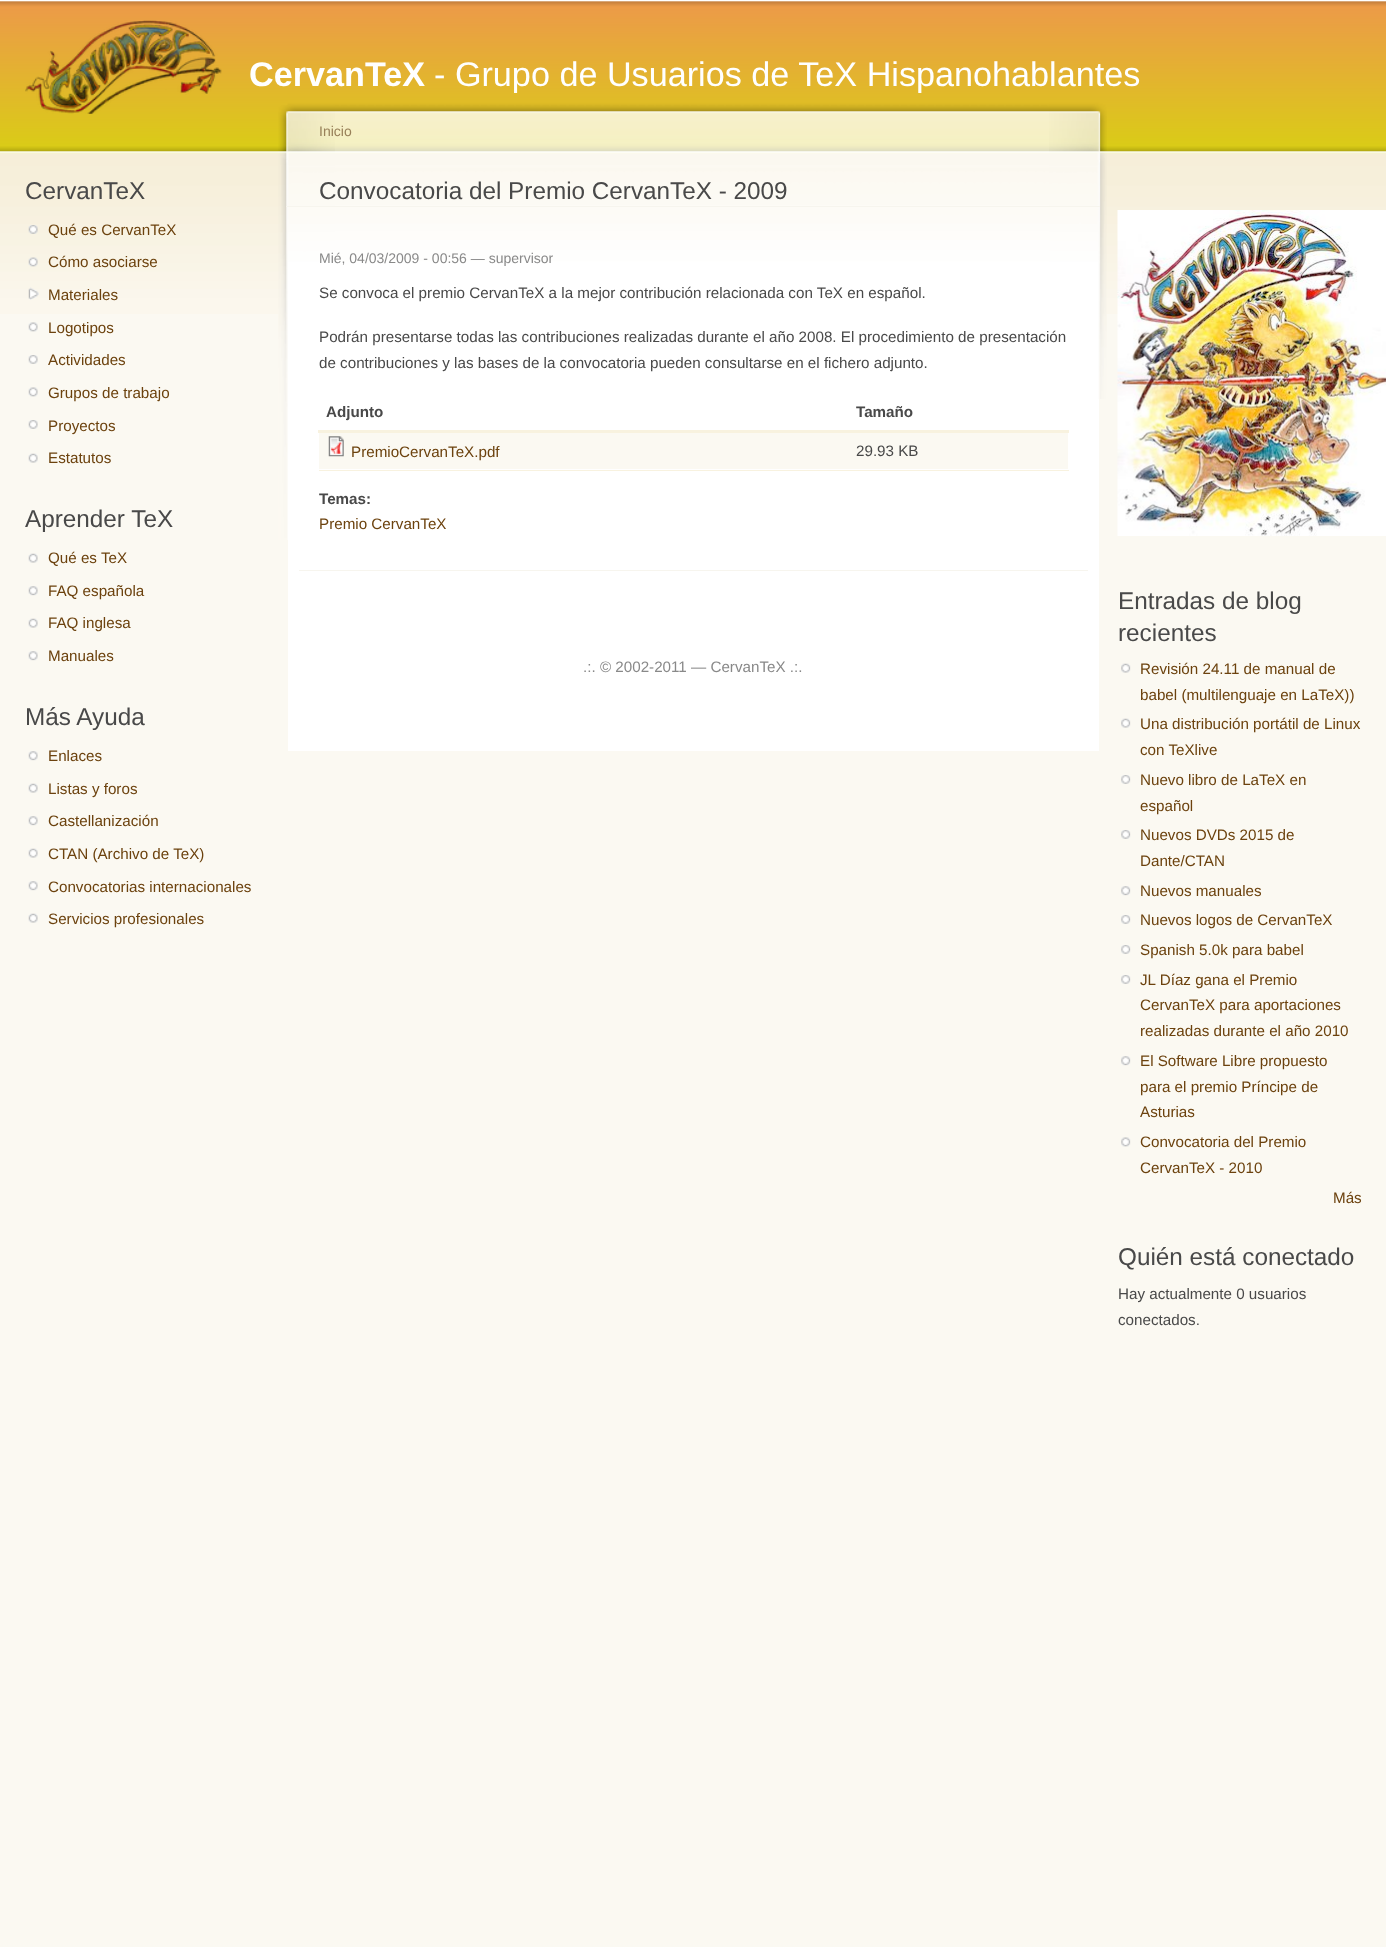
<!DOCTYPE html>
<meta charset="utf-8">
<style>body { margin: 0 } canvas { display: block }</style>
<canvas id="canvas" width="1386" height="1947"></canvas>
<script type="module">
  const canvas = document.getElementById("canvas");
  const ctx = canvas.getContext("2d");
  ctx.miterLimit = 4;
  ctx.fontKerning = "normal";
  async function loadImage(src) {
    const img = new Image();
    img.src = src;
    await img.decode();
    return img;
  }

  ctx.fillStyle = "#fbf9f2";
  ctx.fillRect(0, 0, 1386, 1947);
  ctx.drawImage(await loadImage("img1.png"), 0, 0, 1386, 314);
  ctx.drawImage(await loadImage("img2.png"), 25, 20, 197, 94);
  ctx.font = "bold 34.2px Liberation Sans";
  ctx.fillStyle = "#ffffff";
  ctx.fillText("CervanTeX", 249, 86);
  ctx.font = "34.2px Liberation Sans";
  ctx.fillText("- Grupo de Usuarios de TeX Hispanohablantes", 434, 86);
  ctx.font = "24.3px Liberation Sans";
  ctx.fillStyle = "#494949";
  ctx.fillText("CervanTeX", 25, 199);
  ctx.drawImage(await loadImage("img3.png"), 28, 225, 10, 9);
  ctx.font = "15.2px Liberation Sans";
  ctx.fillStyle = "#6c420e";
  ctx.fillText("Qué es CervanTeX", 48, 235);
  ctx.drawImage(await loadImage("img4.png"), 28, 257, 10, 10);
  ctx.fillText("Cómo asociarse", 48, 267);
  ctx.drawImage(await loadImage("img5.png"), 28, 287, 11, 13);
  ctx.fillText("Materiales", 48, 300);
  ctx.drawImage(await loadImage("img6.png"), 28, 322, 10, 10);
  ctx.fillText("Logotipos", 48, 333);
  ctx.drawImage(await loadImage("img7.png"), 28, 355, 10, 9);
  ctx.fillText("Actividades", 48, 365);
  ctx.drawImage(await loadImage("img6.png"), 28, 387, 10, 10);
  ctx.fillText("Grupos de trabajo", 48, 398);
  ctx.drawImage(await loadImage("img7.png"), 28, 420, 10, 9);
  ctx.fillText("Proyectos", 48, 431);
  ctx.drawImage(await loadImage("img8.png"), 28, 453, 10, 10);
  ctx.fillText("Estatutos", 48, 463);
  ctx.font = "24.3px Liberation Sans";
  ctx.fillStyle = "#494949";
  ctx.fillText("Aprender TeX", 25, 527);
  ctx.drawImage(await loadImage("img8.png"), 28, 553, 10, 10);
  ctx.font = "15.2px Liberation Sans";
  ctx.fillStyle = "#6c420e";
  ctx.fillText("Qué es TeX", 48, 563);
  ctx.drawImage(await loadImage("img9.png"), 28, 586, 10, 10);
  ctx.fillText("FAQ española", 48, 596);
  ctx.drawImage(await loadImage("img8.png"), 28, 618, 10, 10);
  ctx.fillText("FAQ inglesa", 48, 628);
  ctx.drawImage(await loadImage("img10.png"), 28, 651, 10, 10);
  ctx.fillText("Manuales", 48, 661);
  ctx.font = "24.3px Liberation Sans";
  ctx.fillStyle = "#494949";
  ctx.fillText("Más Ayuda", 25, 725);
  ctx.drawImage(await loadImage("img10.png"), 28, 751, 10, 10);
  ctx.font = "15.2px Liberation Sans";
  ctx.fillStyle = "#6c420e";
  ctx.fillText("Enlaces", 48, 761);
  ctx.drawImage(await loadImage("img8.png"), 28, 783, 10, 10);
  ctx.fillText("Listas y foros", 48, 794);
  ctx.drawImage(await loadImage("img10.png"), 28, 816, 10, 10);
  ctx.fillText("Castellanización", 48, 826);
  ctx.drawImage(await loadImage("img8.png"), 28, 848, 10, 10);
  ctx.fillText("CTAN (Archivo de TeX)", 48, 859);
  ctx.drawImage(await loadImage("img10.png"), 28, 881, 10, 10);
  ctx.fillText("Convocatorias internacionales", 48, 892);
  ctx.drawImage(await loadImage("img8.png"), 28, 913, 10, 10);
  ctx.fillText("Servicios profesionales", 48, 924);
  ctx.fillStyle = "#ffffff";
  ctx.fillRect(288, 350, 811, 401);
  ctx.drawImage(await loadImage("img11.png"), 287, 100, 762, 250);
  ctx.drawImage(await loadImage("img12.png"), 1049, 100, 58, 299);
  ctx.drawImage(await loadImage("img13.png"), 278, 105, 57, 435);
  ctx.font = "14px Liberation Sans";
  ctx.fillStyle = "#988059";
  ctx.fillText("Inicio", 319, 136);
  ctx.fillStyle = "#f7f5ee";
  ctx.fillRect(286, 206, 814, 1);
  ctx.font = "24.3px Liberation Sans";
  ctx.fillStyle = "#494949";
  ctx.fillText("Convocatoria del Premio CervanTeX - 2009", 319, 199);
  ctx.fillStyle = "#f7f5ee";
  ctx.fillRect(299, 570, 789, 1);
  ctx.font = "14px Liberation Sans";
  ctx.fillStyle = "#898989";
  ctx.fillText("Mié, 04/03/2009 - 00:56 — supervisor", 319, 263);
  ctx.font = "15.2px Liberation Sans";
  ctx.fillStyle = "#494949";
  ctx.fillText("Se convoca el premio CervanTeX a la mejor contribución relacionada con TeX en español.", 319, 298);
  ctx.fillText("Podrán presentarse todas las contribuciones realizadas durante el año 2008. El procedimiento de presentación", 319, 342);
  ctx.fillText("de contribuciones y las bases de la convocatoria pueden consultarse en el fichero adjunto.", 319, 368);
  ctx.font = "bold 15.2px Liberation Sans";
  ctx.fillText("Adjunto", 326, 417);
  ctx.fillStyle = "#f8f2df";
  ctx.fillRect(318, 430, 751, 3);
  ctx.fillStyle = "#494949";
  ctx.fillText("Tamaño", 856, 417);
  ctx.fillStyle = "#fbf9f2";
  ctx.fillRect(319, 433, 749, 36);
  ctx.fillStyle = "#f8f2df";
  ctx.fillRect(319, 470, 750, 1);
  ctx.drawImage(await loadImage("img14.png"), 328, 436, 16, 21);
  ctx.font = "15.2px Liberation Sans";
  ctx.fillStyle = "#6c420e";
  ctx.fillText("PremioCervanTeX.pdf", 351, 457);
  ctx.fillStyle = "#494949";
  ctx.fillText("29.93 KB", 856, 456);
  ctx.font = "bold 15.2px Liberation Sans";
  ctx.fillText("Temas:", 319, 504);
  ctx.font = "15.2px Liberation Sans";
  ctx.fillStyle = "#6c420e";
  ctx.fillText("Premio CervanTeX", 319, 529);
  ctx.fillStyle = "#898989";
  ctx.fillText(".:. © 2002-2011 — CervanTeX .:.", 583, 672);
  ctx.drawImage(await loadImage("img15.png"), 1117, 210, 269, 326);
  ctx.font = "24.3px Liberation Sans";
  ctx.fillStyle = "#494949";
  ctx.fillText("Entradas de blog", 1118, 609);
  ctx.fillText("recientes", 1118, 641);
  ctx.drawImage(await loadImage("img16.png"), 1121, 663, 10, 10);
  ctx.font = "15.2px Liberation Sans";
  ctx.fillStyle = "#6c420e";
  ctx.fillText("Revisión 24.11 de manual de", 1140, 674);
  ctx.fillText("babel (multilenguaje en LaTeX))", 1140, 700);
  ctx.drawImage(await loadImage("img16.png"), 1121, 718, 10, 10);
  ctx.fillText("Una distribución portátil de Linux", 1140, 729);
  ctx.fillText("con TeXlive", 1140, 755);
  ctx.drawImage(await loadImage("img17.png"), 1121, 775, 10, 9);
  ctx.fillText("Nuevo libro de LaTeX en", 1140, 785);
  ctx.fillText("español", 1140, 811);
  ctx.drawImage(await loadImage("img18.png"), 1121, 830, 10, 9);
  ctx.fillText("Nuevos DVDs 2015 de", 1140, 840);
  ctx.fillText("Dante/CTAN", 1140, 866);
  ctx.drawImage(await loadImage("img19.png"), 1121, 886, 10, 10);
  ctx.fillText("Nuevos manuales", 1140, 896);
  ctx.drawImage(await loadImage("img18.png"), 1121, 915, 10, 9);
  ctx.fillText("Nuevos logos de CervanTeX", 1140, 925);
  ctx.drawImage(await loadImage("img18.png"), 1121, 945, 10, 9);
  ctx.fillText("Spanish 5.0k para babel", 1140, 955);
  ctx.drawImage(await loadImage("img18.png"), 1121, 975, 10, 9);
  ctx.fillText("JL Díaz gana el Premio", 1140, 985);
  ctx.fillText("CervanTeX para aportaciones", 1140, 1010);
  ctx.fillText("realizadas durante el año 2010", 1140, 1036);
  ctx.drawImage(await loadImage("img19.png"), 1121, 1056, 10, 10);
  ctx.fillText("El Software Libre propuesto", 1140, 1066);
  ctx.fillText("para el premio Príncipe de", 1140, 1092);
  ctx.fillText("Asturias", 1140, 1117);
  ctx.drawImage(await loadImage("img20.png"), 1121, 1137, 10, 10);
  ctx.fillText("Convocatoria del Premio", 1140, 1147);
  ctx.fillText("CervanTeX - 2010", 1140, 1173);
  ctx.fillText("Más", 1333, 1203);
  ctx.font = "24.3px Liberation Sans";
  ctx.fillStyle = "#494949";
  ctx.fillText("Quién está conectado", 1118, 1265);
  ctx.font = "15.2px Liberation Sans";
  ctx.fillText("Hay actualmente 0 usuarios", 1118, 1299);
  ctx.fillText("conectados.", 1118, 1325);
</script>
